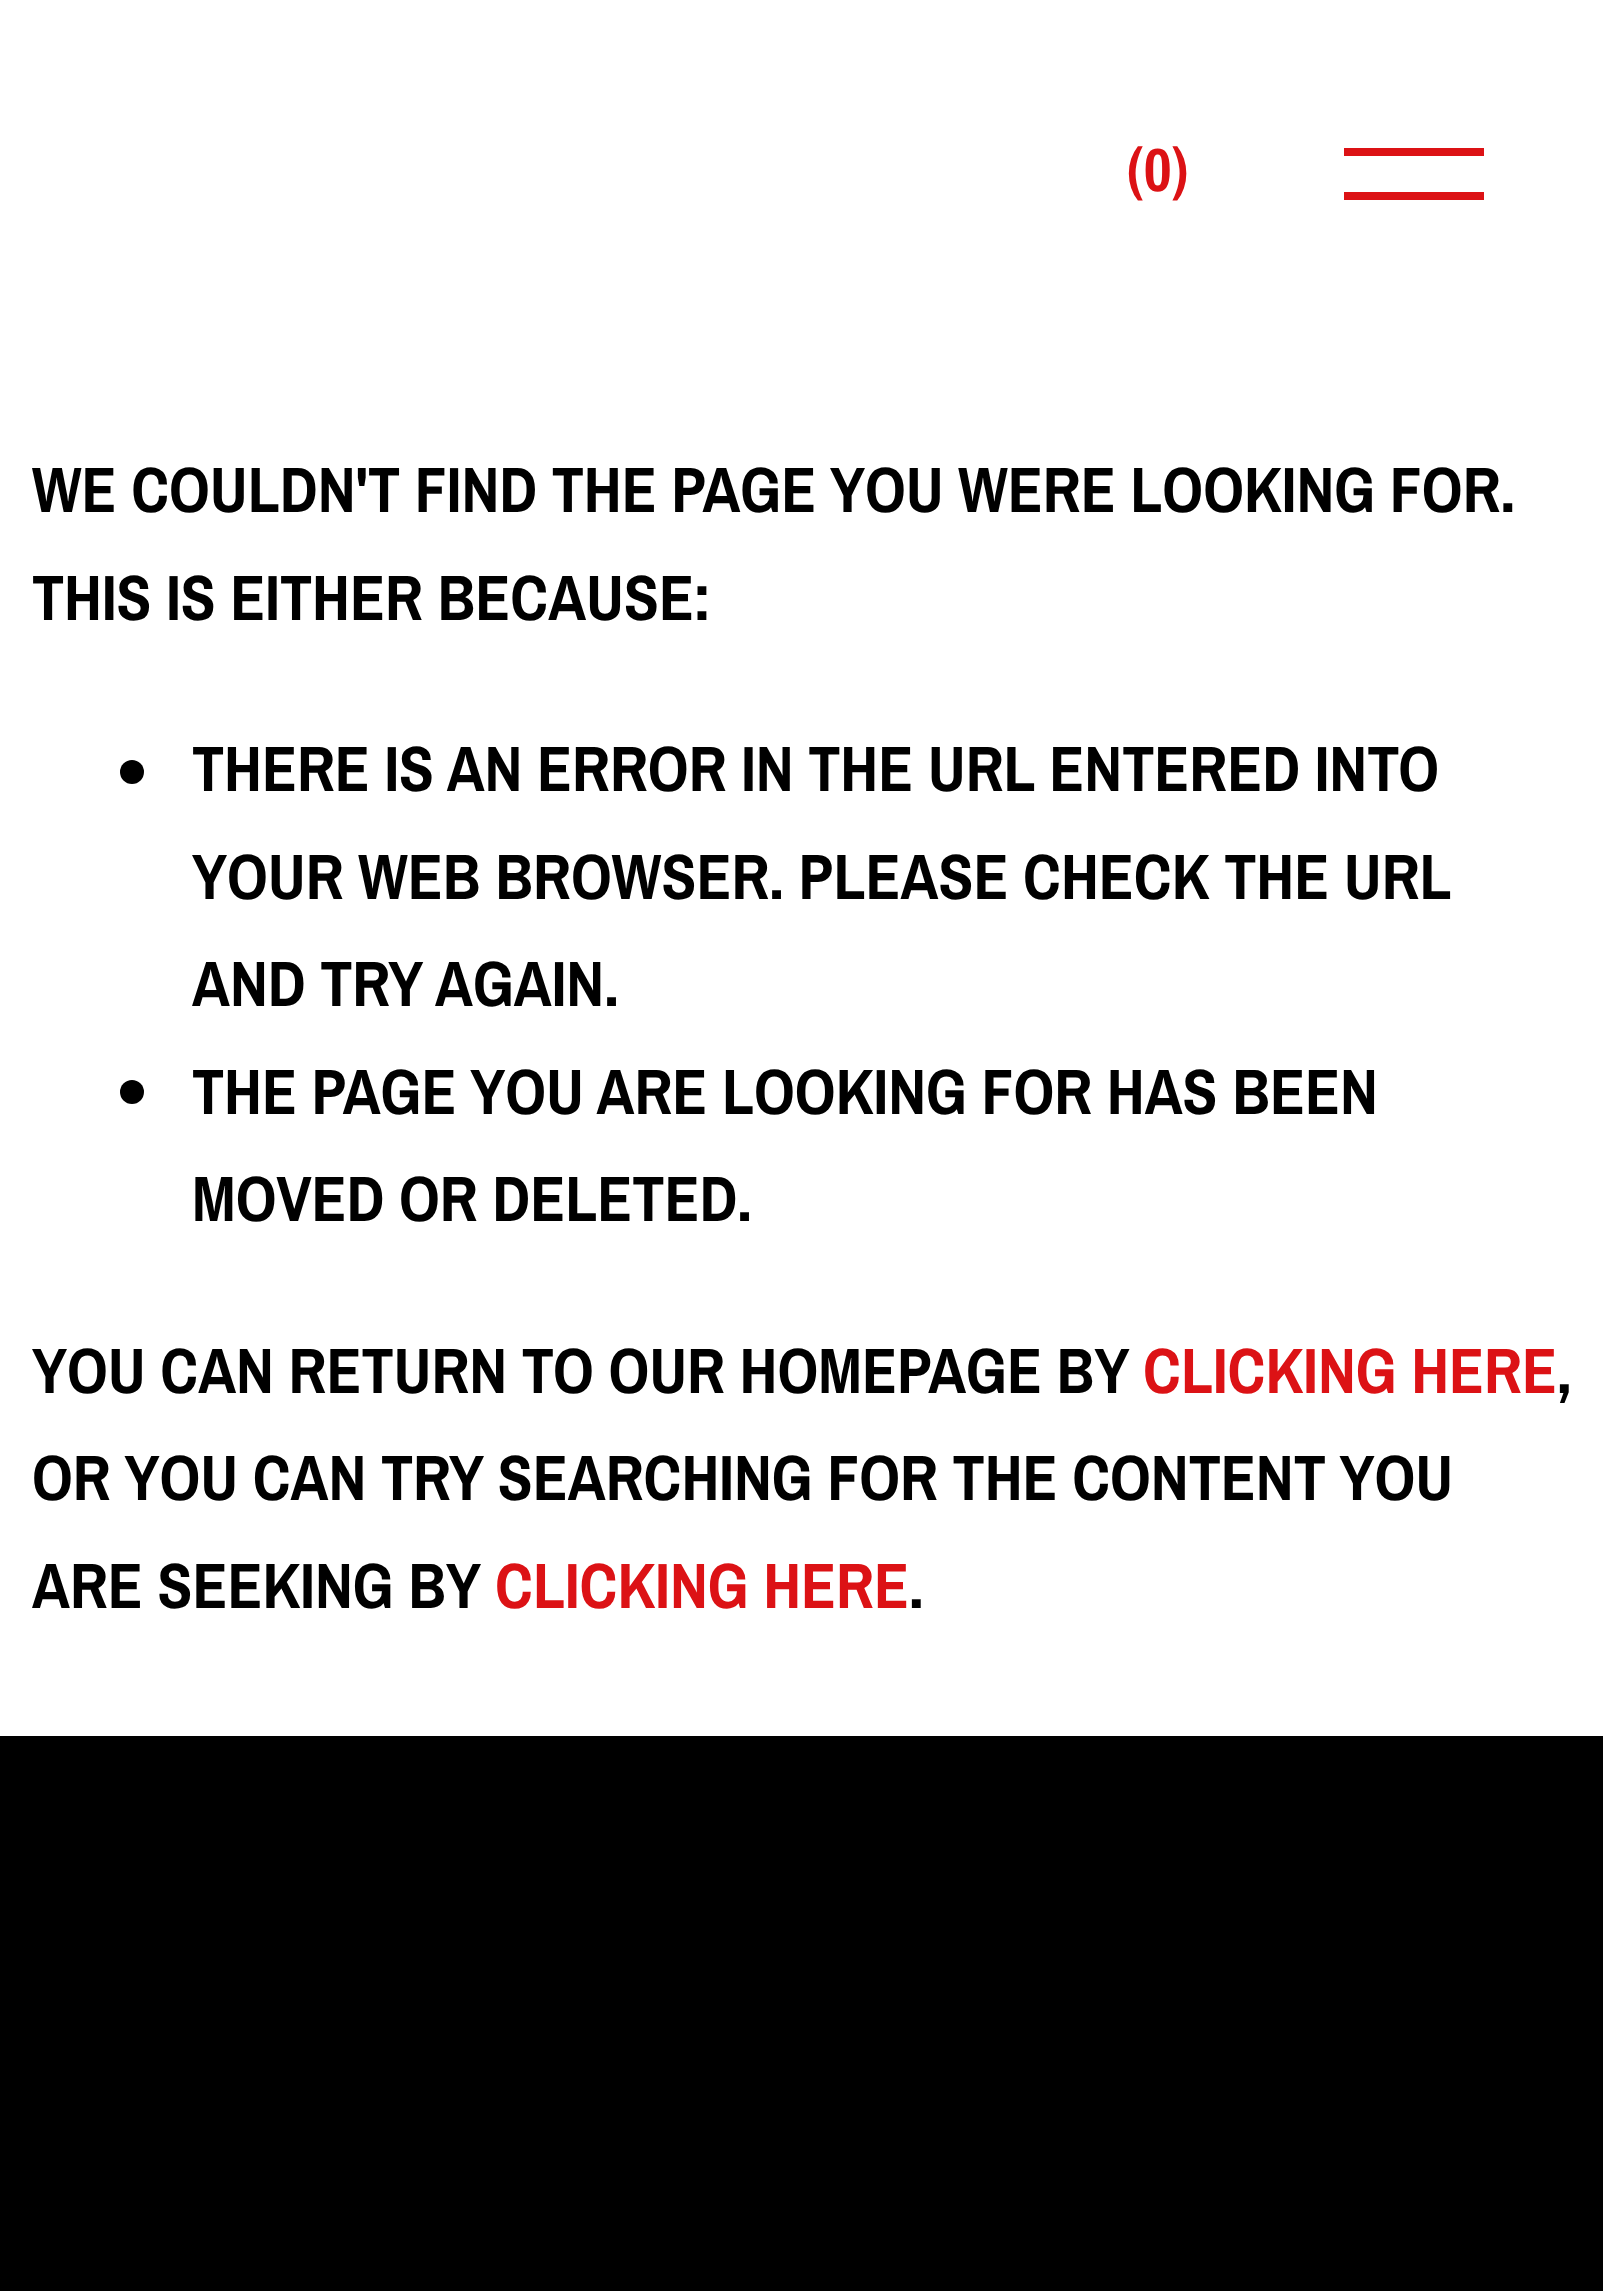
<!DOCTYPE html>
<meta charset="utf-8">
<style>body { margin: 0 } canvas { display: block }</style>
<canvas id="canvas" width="1603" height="2291"></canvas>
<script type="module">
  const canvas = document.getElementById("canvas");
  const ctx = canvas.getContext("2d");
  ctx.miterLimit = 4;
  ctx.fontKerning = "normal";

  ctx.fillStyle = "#ffffff";
  ctx.fillRect(0, 0, 1603, 2291);
  ctx.font = "bold 61px Archivo Narrow";
  ctx.fillStyle = "#dc1215";
  ctx.fillText("(0)", 1127, 191);
  ctx.fillRect(1344, 148, 140, 8);
  ctx.fillRect(1344, 192, 140, 8);
  ctx.font = "bold 64px Archivo Narrow";
  ctx.fillStyle = "#000000";
  ctx.fillText("WE COULDN'T FIND THE PAGE YOU WERE LOOKING FOR.", 32, 512);
  ctx.fillText("THIS IS EITHER BECAUSE:", 32, 620);
  ctx.beginPath();
  ctx.arc(132, 772, 12, 0, Math.PI * 2);
  ctx.fill();
  ctx.fillText("THERE IS AN ERROR IN THE URL ENTERED INTO", 192, 791);
  ctx.fillText("YOUR WEB BROWSER. PLEASE CHECK THE URL", 192, 899);
  ctx.fillText("AND TRY AGAIN.", 192, 1006);
  ctx.beginPath();
  ctx.arc(132, 1092, 12, 0, Math.PI * 2);
  ctx.fill();
  ctx.fillText("THE PAGE YOU ARE LOOKING FOR HAS BEEN", 192, 1114);
  ctx.fillText("MOVED OR DELETED.", 192, 1221);
  ctx.fillText("YOU CAN RETURN TO OUR HOMEPAGE BY", 32, 1393);
  ctx.fillStyle = "#dc1215";
  ctx.fillText("CLICKING HERE", 1143, 1393);
  ctx.fillStyle = "#000000";
  ctx.fillText(",", 1557, 1393);
  ctx.fillText("OR YOU CAN TRY SEARCHING FOR THE CONTENT YOU", 32, 1500);
  ctx.fillText("ARE SEEKING BY", 32, 1608);
  ctx.fillStyle = "#dc1215";
  ctx.fillText("CLICKING HERE", 495, 1608);
  ctx.fillStyle = "#000000";
  ctx.fillText(".", 909, 1608);
  ctx.fillRect(0, 1736, 1603, 555);
</script>
